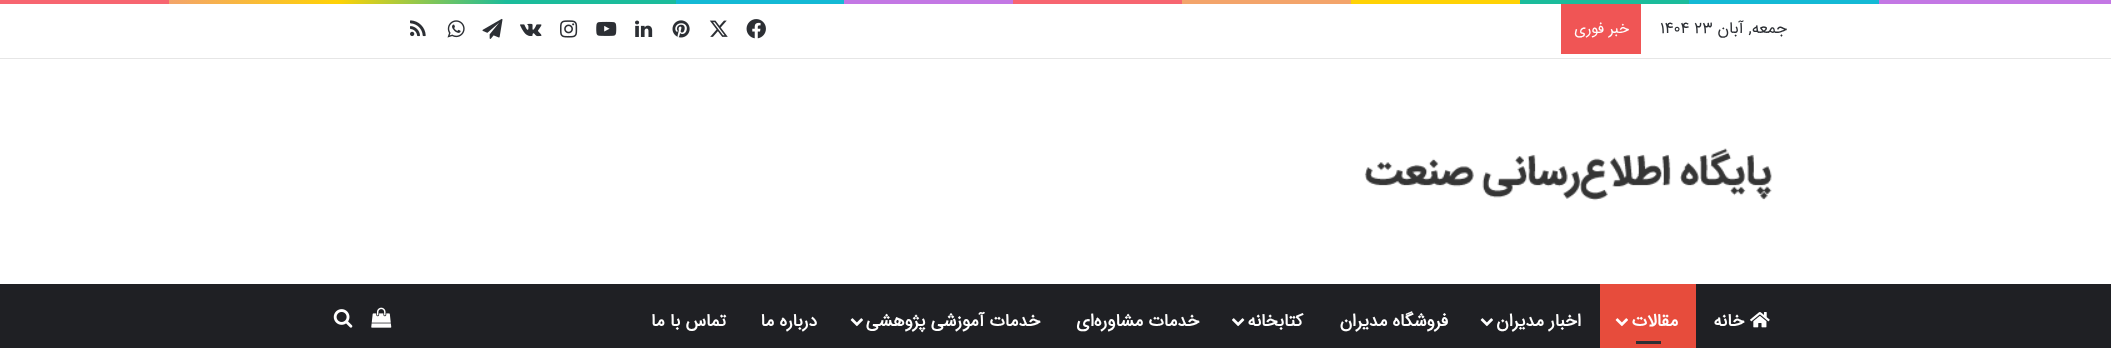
<!DOCTYPE html>
<meta charset="utf-8">
<style>body { margin: 0 } canvas { display: block }</style>
<canvas id="canvas" width="2111" height="348"></canvas>
<script type="module">
  const canvas = document.getElementById("canvas");
  const ctx = canvas.getContext("2d");
  ctx.miterLimit = 4;
  ctx.fontKerning = "normal";
  async function loadImage(src) {
    const img = new Image();
    img.src = src;
    await img.decode();
    return img;
  }
  let gradient;

  ctx.fillStyle = "#ffffff";
  ctx.fillRect(0, 0, 2111, 348);
  gradient = ctx.createLinearGradient(0, 1.9, 2111, 1.9);
  gradient.addColorStop(0, "#f76570");
  gradient.addColorStop(0.08, "#f76570");
  gradient.addColorStop(0.08, "#f3a46b");
  gradient.addColorStop(0.16, "#ffd205");
  gradient.addColorStop(0.24, "#1bbc9b");
  gradient.addColorStop(0.32, "#1bbc9b");
  gradient.addColorStop(0.32, "#14b9d5");
  gradient.addColorStop(0.4, "#14b9d5");
  gradient.addColorStop(0.4, "#c377e4");
  gradient.addColorStop(0.48, "#c377e4");
  gradient.addColorStop(0.48, "#f76570");
  gradient.addColorStop(0.56, "#f76570");
  gradient.addColorStop(0.56, "#f3a46b");
  gradient.addColorStop(0.64, "#f3a46b");
  gradient.addColorStop(0.64, "#ffd205");
  gradient.addColorStop(0.72, "#ffd205");
  gradient.addColorStop(0.72, "#1bbc9b");
  gradient.addColorStop(0.8, "#1bbc9b");
  gradient.addColorStop(0.8, "#14b9d5");
  gradient.addColorStop(0.89, "#14b9d5");
  gradient.addColorStop(0.89, "#c377e4");
  gradient.addColorStop(1, "#c377e4");
  ctx.fillStyle = gradient;
  ctx.fillRect(0, 0, 2111, 4);
  ctx.fillStyle = "#e6e6e6";
  ctx.fillRect(0, 58, 2111, 1);
  ctx.direction = "rtl";
  ctx.font = "16.25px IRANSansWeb";
  ctx.fillStyle = "#2c2f34";
  ctx.fillText("جمعه, آبان", 1787, 33);
  ctx.direction = "ltr";
  ctx.fillText("۱۴۰۴ ۲۳", 1660, 33);
  ctx.fillStyle = "#f05555";
  ctx.fillRect(1561, 4, 80, 50);
  ctx.direction = "rtl";
  ctx.font = "15px IRANSansWeb";
  ctx.fillStyle = "#ffffff";
  ctx.fillText("خبر فوری", 1629, 33);
  ctx.drawImage(await loadImage("img1.png"), 746, 19, 20, 20);
  ctx.drawImage(await loadImage("img2.png"), 709, 20, 19, 17);
  ctx.drawImage(await loadImage("img3.png"), 672, 20, 18, 18);
  ctx.drawImage(await loadImage("img4.png"), 635, 20, 18, 17);
  ctx.drawImage(await loadImage("img5.png"), 596, 21, 21, 15);
  ctx.drawImage(await loadImage("img6.png"), 560, 20, 18, 18);
  ctx.drawImage(await loadImage("img7.png"), 520, 23, 22, 14);
  ctx.drawImage(await loadImage("img8.png"), 482, 18, 21, 21);
  ctx.drawImage(await loadImage("img9.png"), 447, 20, 18, 18);
  ctx.drawImage(await loadImage("img10.png"), 410, 20, 16, 17);
  ctx.drawImage(await loadImage("img11.png"), 1364, 148, 408, 53);
  ctx.fillStyle = "#1f2024";
  ctx.fillRect(0, 284, 2111, 64);
  ctx.drawImage(await loadImage("img12.png"), 1750, 312, 20, 16);
  ctx.font = "bold 17.5px IRANSansWeb";
  ctx.fillStyle = "#ffffff";
  ctx.fillText("خانه", 1744, 326);
  ctx.fillStyle = "#e74c3c";
  ctx.fillRect(1600, 284, 96, 64);
  ctx.fillStyle = "#ffffff";
  ctx.fillText("مقالات", 1678, 326);
  ctx.drawImage(await loadImage("img13.png"), 1615, 318, 13, 9);
  ctx.fillStyle = "#2c2f34";
  ctx.fillRect(1636, 341, 25, 3);
  ctx.fillStyle = "#ffffff";
  ctx.fillText("اخبار مدیران", 1581, 326);
  ctx.drawImage(await loadImage("img14.png"), 1480, 318, 13, 9);
  ctx.fillText("فروشگاه مدیران", 1448, 326);
  ctx.fillText("کتابخانه", 1303, 326);
  ctx.drawImage(await loadImage("img15.png"), 1232, 318, 13, 9);
  ctx.fillText("خدمات مشاوره‌ای", 1199, 326);
  ctx.fillText("خدمات آموزشی پژوهشی", 1040, 326);
  ctx.drawImage(await loadImage("img14.png"), 850, 318, 13, 9);
  ctx.fillText("درباره ما", 817, 326);
  ctx.fillText("تماس با ما", 726, 326);
  ctx.drawImage(await loadImage("img16.png"), 371, 307, 21, 21);
  ctx.drawImage(await loadImage("img17.png"), 333, 309, 20, 19);
</script>
